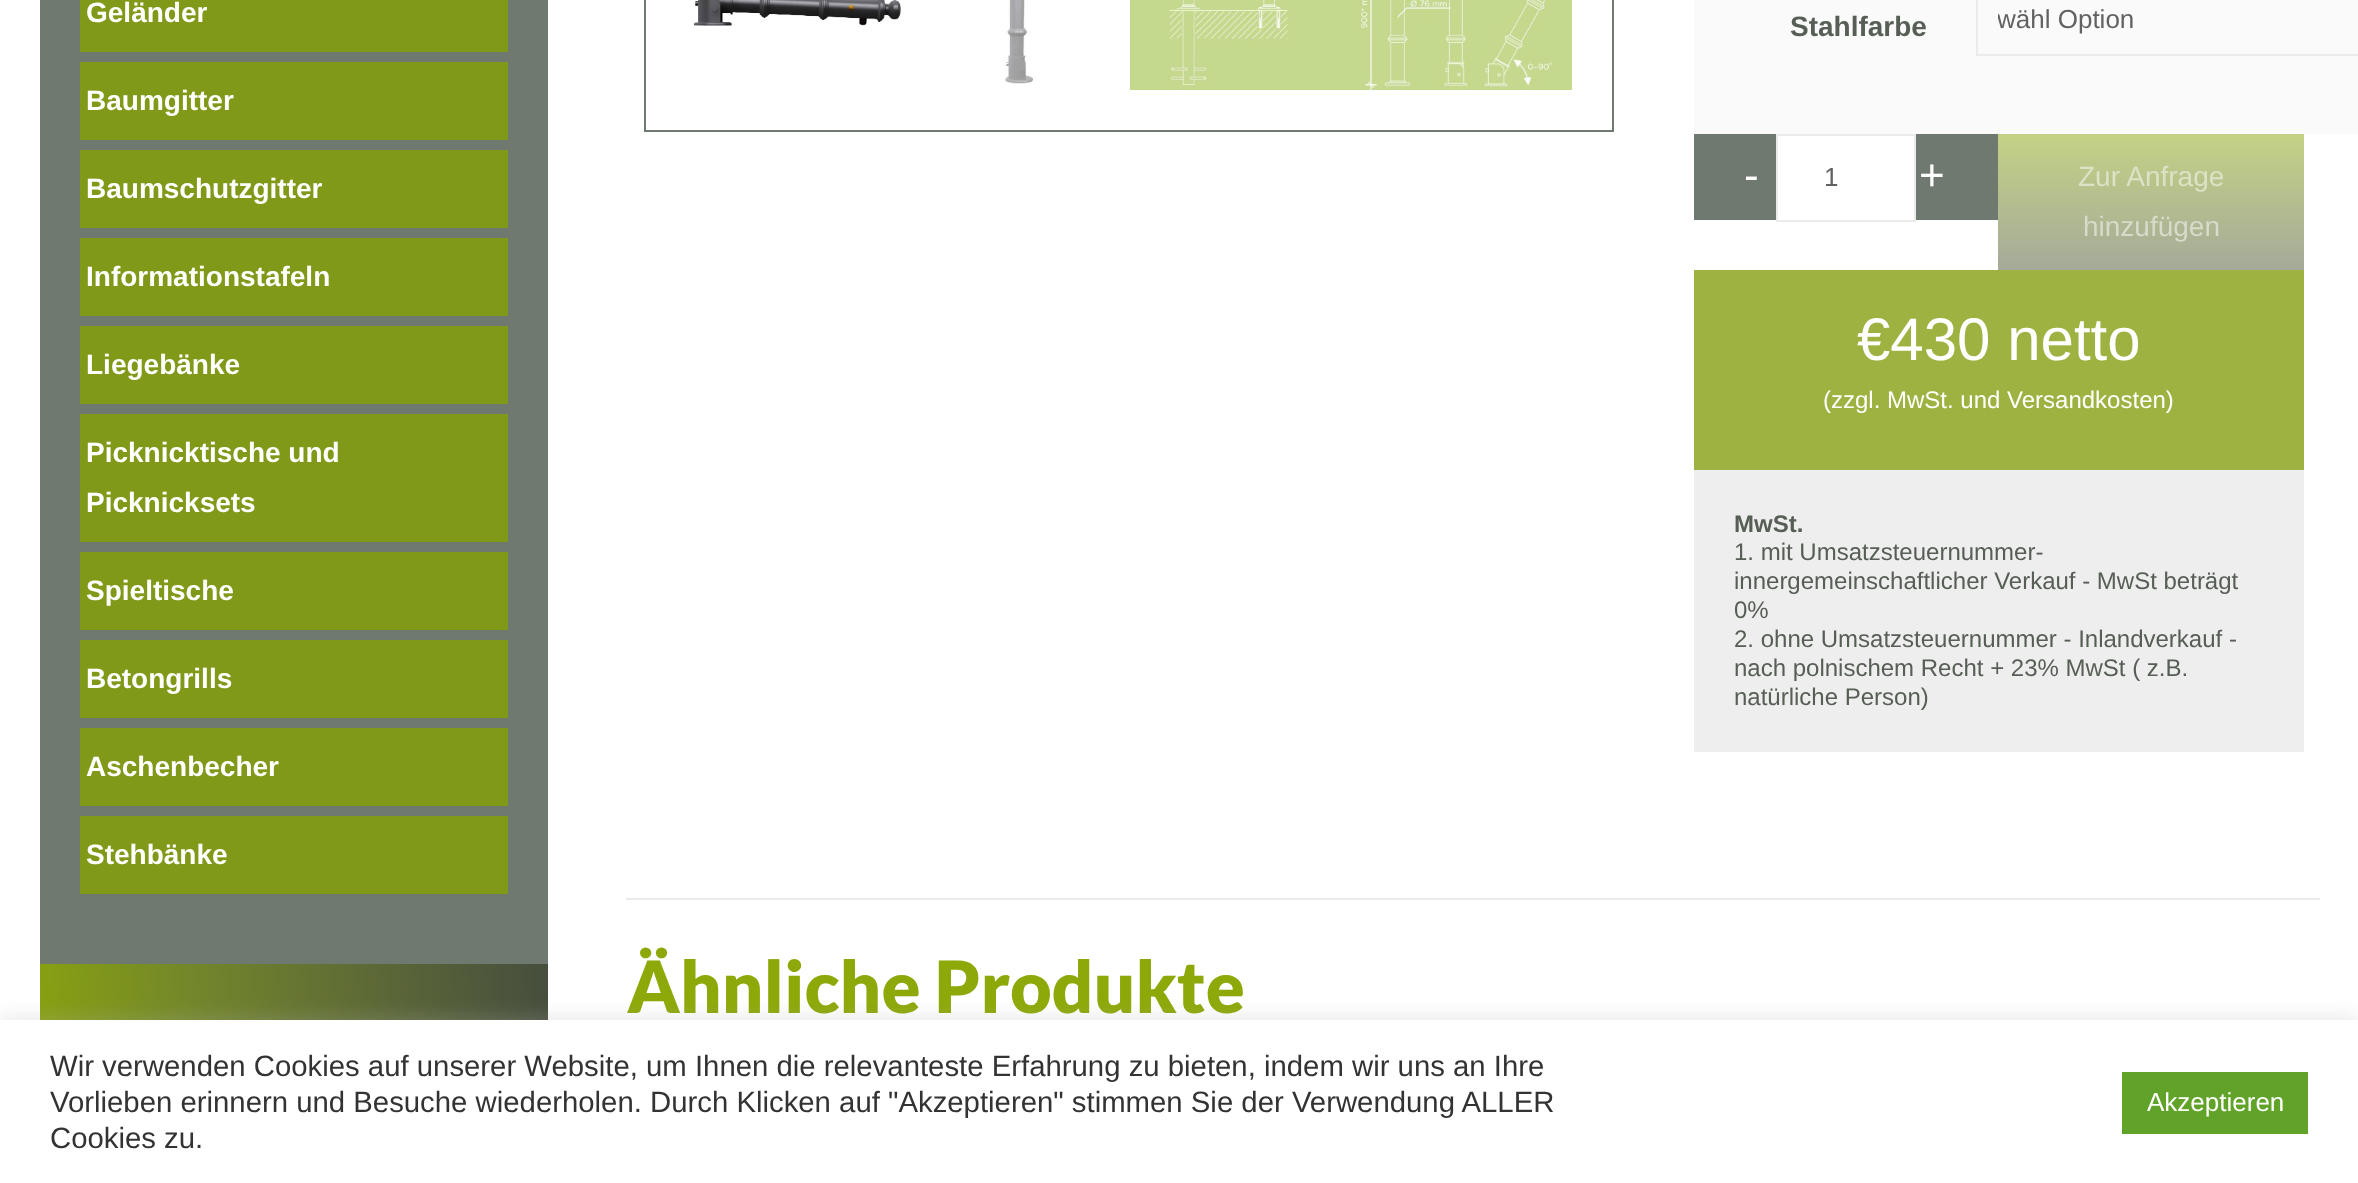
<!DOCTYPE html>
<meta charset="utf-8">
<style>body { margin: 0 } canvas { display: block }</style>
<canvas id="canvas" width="2358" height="1183"></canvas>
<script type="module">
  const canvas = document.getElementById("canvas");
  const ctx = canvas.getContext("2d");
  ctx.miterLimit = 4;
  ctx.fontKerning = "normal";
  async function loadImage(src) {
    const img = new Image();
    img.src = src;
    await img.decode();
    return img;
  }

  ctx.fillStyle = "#ffffff";
  ctx.fillRect(0, 0, 2358, 1183);
  ctx.fillStyle = "#70796f";
  ctx.fillRect(40, 0, 508, 964);
  ctx.fillStyle = "#819919";
  ctx.fillRect(80, 0, 428, 52);
  ctx.font = "bold 28px Liberation Sans";
  ctx.fillStyle = "#ffffff";
  ctx.fillText("Geländer", 86, 22);
  ctx.fillStyle = "#819919";
  ctx.fillRect(80, 62, 428, 78);
  ctx.fillStyle = "#ffffff";
  ctx.fillText("Baumgitter", 86, 110);
  ctx.fillStyle = "#819919";
  ctx.fillRect(80, 150, 428, 78);
  ctx.fillStyle = "#ffffff";
  ctx.fillText("Baumschutzgitter", 86, 198);
  ctx.fillStyle = "#819919";
  ctx.fillRect(80, 238, 428, 78);
  ctx.fillStyle = "#ffffff";
  ctx.fillText("Informationstafeln", 86, 286);
  ctx.fillStyle = "#819919";
  ctx.fillRect(80, 326, 428, 78);
  ctx.fillStyle = "#ffffff";
  ctx.fillText("Liegebänke", 86, 374);
  ctx.fillStyle = "#819919";
  ctx.fillRect(80, 414, 428, 128);
  ctx.fillStyle = "#ffffff";
  ctx.fillText("Picknicktische und", 86, 462);
  ctx.fillText("Picknicksets", 86, 512);
  ctx.fillStyle = "#819919";
  ctx.fillRect(80, 552, 428, 78);
  ctx.fillStyle = "#ffffff";
  ctx.fillText("Spieltische", 86, 600);
  ctx.fillStyle = "#819919";
  ctx.fillRect(80, 640, 428, 78);
  ctx.fillStyle = "#ffffff";
  ctx.fillText("Betongrills", 86, 688);
  ctx.fillStyle = "#819919";
  ctx.fillRect(80, 728, 428, 78);
  ctx.fillStyle = "#ffffff";
  ctx.fillText("Aschenbecher", 86, 776);
  ctx.fillStyle = "#819919";
  ctx.fillRect(80, 816, 428, 78);
  ctx.fillStyle = "#ffffff";
  ctx.fillText("Stehbänke", 86, 864);
  ctx.drawImage(await loadImage("img1.png"), 40, 964, 508, 56);
  ctx.strokeStyle = "#70796f";
  ctx.lineWidth = 2;
  ctx.strokeRect(645, -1, 968, 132);
  ctx.drawImage(await loadImage("img2.png"), 694, 0, 207, 26);
  ctx.drawImage(await loadImage("img3.png"), 1003, 0, 31, 84);
  ctx.drawImage(await loadImage("img4.png"), 1130, 0, 222, 90);
  ctx.drawImage(await loadImage("img5.png"), 1352, 0, 220, 90);
  ctx.fillStyle = "#fafafa";
  ctx.fillRect(1694, 0, 664, 134);
  ctx.fillStyle = "#565e55";
  ctx.fillText("Stahlfarbe", 1790, 36);
  ctx.strokeStyle = "#ebebeb";
  ctx.strokeRect(1977, -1, 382, 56);
  ctx.save();
  ctx.beginPath();
  ctx.rect(1998, 4, 358, 30);
  ctx.clip();
  ctx.font = "26px Liberation Sans";
  ctx.fillStyle = "#626262";
  ctx.fillText("wähl Option", 1997, 28);
  ctx.restore();
  ctx.fillStyle = "#70796f";
  ctx.fillRect(1694, 134, 304, 86);
  ctx.font = "44px Liberation Sans";
  ctx.fillStyle = "#ffffff";
  ctx.fillText("-", 1744, 190);
  ctx.beginPath();
  ctx.rect(1777, 135, 138, 86);
  ctx.fill();
  ctx.stroke();
  ctx.font = "26px Liberation Sans";
  ctx.fillStyle = "#626262";
  ctx.fillText("1", 1824, 186);
  ctx.font = "44px Liberation Sans";
  ctx.fillStyle = "#ffffff";
  ctx.fillText("+", 1919, 190);
  ctx.drawImage(await loadImage("img6.png"), 1998, 134, 306, 136);
  ctx.font = "28px Liberation Sans";
  ctx.fillStyle = "#dce2c5";
  ctx.fillText("Zur Anfrage", 2078, 186);
  ctx.fillStyle = "#d7dbc9";
  ctx.fillText("hinzufügen", 2083, 236);
  ctx.fillStyle = "#9eb241";
  ctx.fillRect(1694, 270, 610, 200);
  ctx.font = "60px Liberation Sans";
  ctx.fillStyle = "#ffffff";
  ctx.fillText("€430 netto", 1857, 360);
  ctx.font = "24px Liberation Sans";
  ctx.fillText("(zzgl. MwSt. und Versandkosten)", 1823, 408);
  ctx.fillStyle = "#eeeeee";
  ctx.fillRect(1694, 470, 610, 282);
  ctx.font = "bold 24px Liberation Sans";
  ctx.fillStyle = "#565e55";
  ctx.fillText("MwSt.", 1734, 532);
  ctx.font = "24px Liberation Sans";
  ctx.fillText("1. mit Umsatzsteuernummer-", 1734, 560);
  ctx.fillText("innergemeinschaftlicher Verkauf - MwSt beträgt", 1734, 589);
  ctx.fillText("0%", 1734, 618);
  ctx.fillText("2. ohne Umsatzsteuernummer - Inlandverkauf -", 1734, 647);
  ctx.fillText("nach polnischem Recht + 23% MwSt ( z.B.", 1734, 676);
  ctx.fillText("natürliche Person)", 1734, 705);
  ctx.fillStyle = "#ebebeb";
  ctx.fillRect(626, 898, 1694, 2);
  ctx.font = "900 72px Lato";
  ctx.fillStyle = "#8da909";
  ctx.fillText("Ähnliche Produkte", 627, 1013);
  ctx.fillStyle = "rgba(172, 171, 171, 0.3)";
  ctx.filter = "blur(10px)";
  ctx.beginPath();
  ctx.rect(0, 1018, 2358, 164);
  ctx.fill();
  ctx.filter = "none";
  ctx.fillStyle = "#ffffff";
  ctx.fillRect(0, 1020, 2358, 163);
  ctx.font = "29.33px Liberation Sans";
  ctx.fillStyle = "#333333";
  ctx.fillText("Wir verwenden Cookies auf unserer Website, um Ihnen die relevanteste Erfahrung zu bieten, indem wir uns an Ihre", 50, 1076);
  ctx.fillText("Vorlieben erinnern und Besuche wiederholen. Durch Klicken auf \"Akzeptieren\" stimmen Sie der Verwendung ALLER", 50, 1112);
  ctx.fillText("Cookies zu.", 50, 1148);
  ctx.fillStyle = "#61a229";
  ctx.fillRect(2122, 1072, 186, 62);
  ctx.font = "26px Liberation Sans";
  ctx.fillStyle = "#ffffff";
  ctx.fillText("Akzeptieren", 2147, 1111);
</script>
